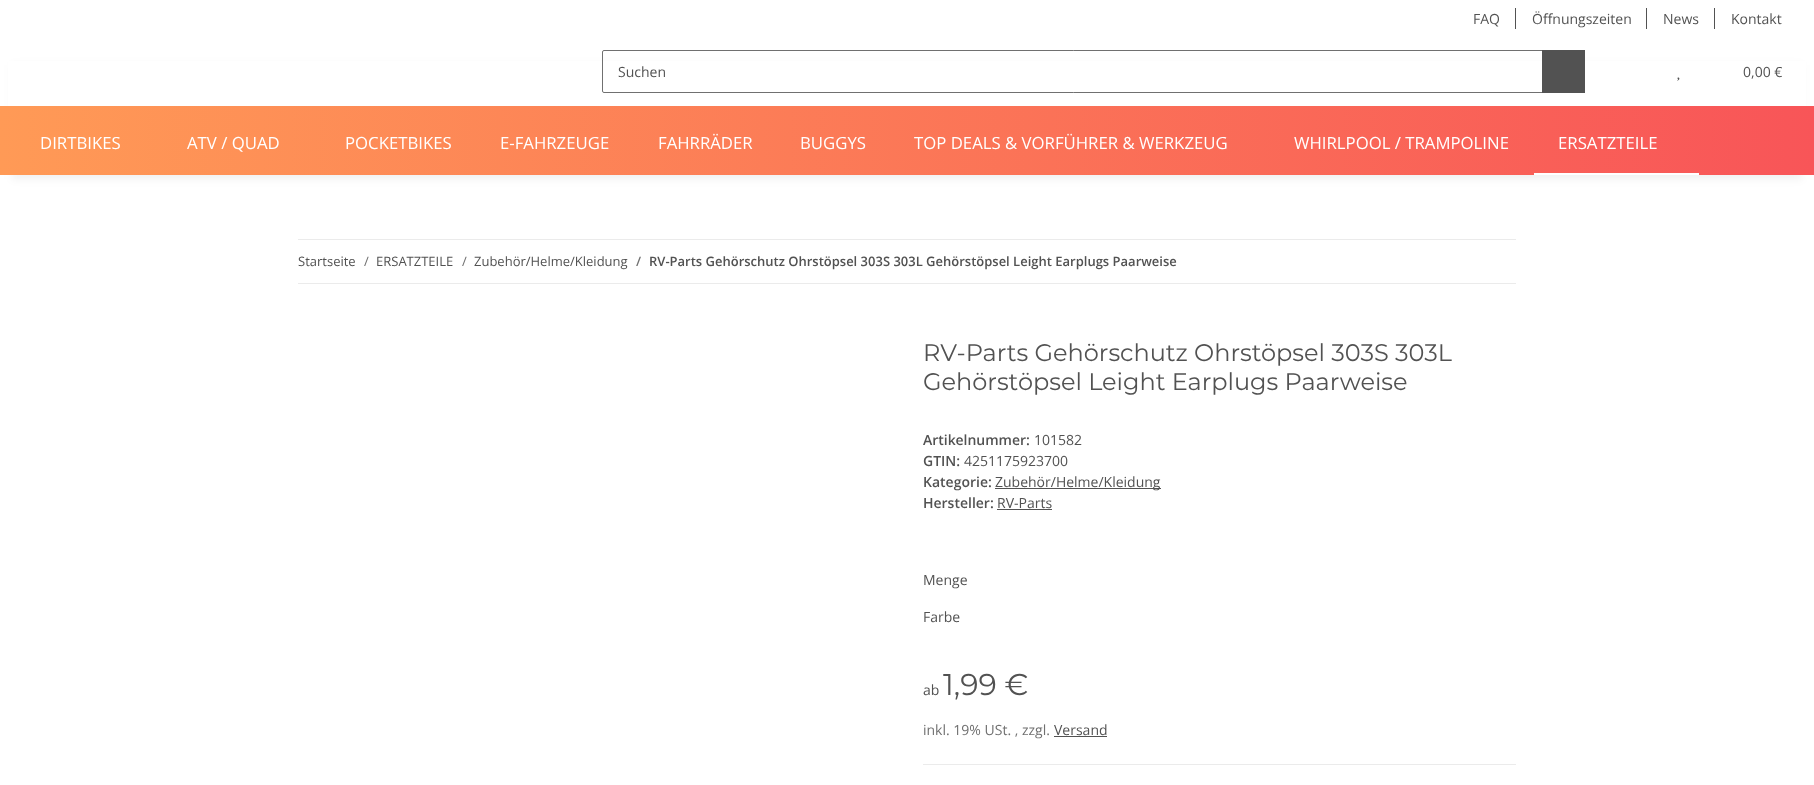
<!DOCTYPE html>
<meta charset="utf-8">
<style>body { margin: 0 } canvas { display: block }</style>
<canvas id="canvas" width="1814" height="785"></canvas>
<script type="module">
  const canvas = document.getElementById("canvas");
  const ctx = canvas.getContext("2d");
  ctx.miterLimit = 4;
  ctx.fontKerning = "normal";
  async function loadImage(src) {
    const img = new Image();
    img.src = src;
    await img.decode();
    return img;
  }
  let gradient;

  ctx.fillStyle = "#ffffff";
  ctx.fillRect(0, 0, 1814, 785);
  ctx.font = "14px Open Sans";
  ctx.fillStyle = "#525252";
  ctx.fillText("FAQ", 1473, 24);
  ctx.fillRect(1515, 8, 1, 21);
  ctx.fillText("Öffnungszeiten", 1532, 24);
  ctx.fillRect(1646, 8, 1, 21);
  ctx.fillText("News", 1663, 24);
  ctx.fillRect(1714, 8, 1, 21);
  ctx.fillText("Kontakt", 1731, 24);
  ctx.fillStyle = "rgba(0, 0, 0, 0.06)";
  ctx.filter = "blur(4.5px)";
  ctx.beginPath();
  ctx.rect(12, 65, 1790, 114);
  ctx.fill();
  ctx.filter = "none";
  ctx.fillStyle = "#ffffff";
  ctx.fillRect(8, 61, 1798, 45);
  ctx.beginPath();
  ctx.roundRect(602.5, 50.5, 940, 42, [1.5, 0, 0, 1.5]);
  ctx.strokeStyle = "#707070";
  ctx.stroke();
  ctx.fillStyle = "#525252";
  ctx.fillText("Suchen", 618, 77);
  ctx.fillRect(1542, 50, 43, 43);
  ctx.drawImage(await loadImage("img1.png"), 1677, 77, 3, 4);
  ctx.fillText("0,00 €", 1743, 77);
  gradient = ctx.createLinearGradient(0, 141, 1814, 140);
  gradient.addColorStop(0, "#ff5e4d");
  gradient.addColorStop(0, "#ff834d");
  gradient.addColorStop(0, "#ff9a56");
  gradient.addColorStop(1, "#f85558");
  ctx.fillStyle = gradient;
  ctx.fillRect(0, 106, 1814, 69);
  ctx.font = "16.75px Open Sans";
  ctx.fillStyle = "#ffffff";
  ctx.fillText("DIRTBIKES", 40, 149);
  ctx.fillText("ATV / QUAD", 187, 149);
  ctx.fillText("POCKETBIKES", 345, 149);
  ctx.fillText("E-FAHRZEUGE", 500, 149);
  ctx.fillText("FAHRRÄDER", 658, 149);
  ctx.fillText("BUGGYS", 800, 149);
  ctx.fillText("TOP DEALS & VORFÜHRER & WERKZEUG", 914, 149);
  ctx.fillText("WHIRLPOOL / TRAMPOLINE", 1294, 149);
  ctx.fillText("ERSATZTEILE", 1558, 149);
  ctx.fillRect(1534, 173, 165, 2);
  ctx.fillStyle = "#ebebeb";
  ctx.fillRect(298, 239, 1218, 1);
  ctx.fillRect(298, 283, 1218, 1);
  ctx.font = "13px Open Sans";
  ctx.fillStyle = "#525252";
  ctx.fillText("Startseite", 298, 266);
  ctx.fillStyle = "#707070";
  ctx.fillText("/", 364, 266);
  ctx.fillStyle = "#525252";
  ctx.fillText("ERSATZTEILE", 376, 266);
  ctx.fillStyle = "#707070";
  ctx.fillText("/", 462, 266);
  ctx.fillStyle = "#525252";
  ctx.fillText("Zubehör/Helme/Kleidung", 474, 266);
  ctx.font = "600 13px Open Sans";
  ctx.fillStyle = "#707070";
  ctx.fillText("/", 636, 266);
  ctx.fillStyle = "#525252";
  ctx.fillText("RV-Parts Gehörschutz Ohrstöpsel 303S 303L Gehörstöpsel Leight Earplugs Paarweise", 649, 266);
  ctx.font = "24px Montserrat";
  ctx.fillText("RV-Parts Gehörschutz Ohrstöpsel 303S 303L", 923, 361);
  ctx.fillText("Gehörstöpsel Leight Earplugs Paarweise", 923, 390);
  ctx.font = "600 14px Open Sans";
  ctx.fillText("Artikelnummer:", 923, 445);
  ctx.font = "14px Open Sans";
  ctx.fillText("101582", 1034, 445);
  ctx.font = "600 14px Open Sans";
  ctx.fillText("GTIN:", 923, 466);
  ctx.font = "14px Open Sans";
  ctx.fillText("4251175923700", 964, 466);
  ctx.font = "600 14px Open Sans";
  ctx.fillText("Kategorie:", 923, 487);
  ctx.fillRect(995, 488, 166, 1);
  ctx.font = "14px Open Sans";
  ctx.fillText("Zubehör/Helme/Kleidung", 995, 487);
  ctx.font = "600 14px Open Sans";
  ctx.fillText("Hersteller:", 923, 508);
  ctx.font = "14px Open Sans";
  ctx.fillText("RV-Parts", 997, 508);
  ctx.fillRect(997, 509, 55, 1);
  ctx.fillText("Menge", 923, 585);
  ctx.fillText("Farbe", 923, 622);
  ctx.fillText("ab", 923, 695);
  ctx.font = "30px Montserrat";
  ctx.fillText("1,99 €", 943, 695);
  ctx.font = "14px Open Sans";
  ctx.fillStyle = "#707070";
  ctx.fillText("inkl. 19% USt. , zzgl.", 923, 735);
  ctx.fillStyle = "#525252";
  ctx.fillText("Versand", 1054, 735);
  ctx.fillRect(1054, 736, 53, 1);
  ctx.fillStyle = "#ebebeb";
  ctx.fillRect(923, 764, 593, 1);
</script>
